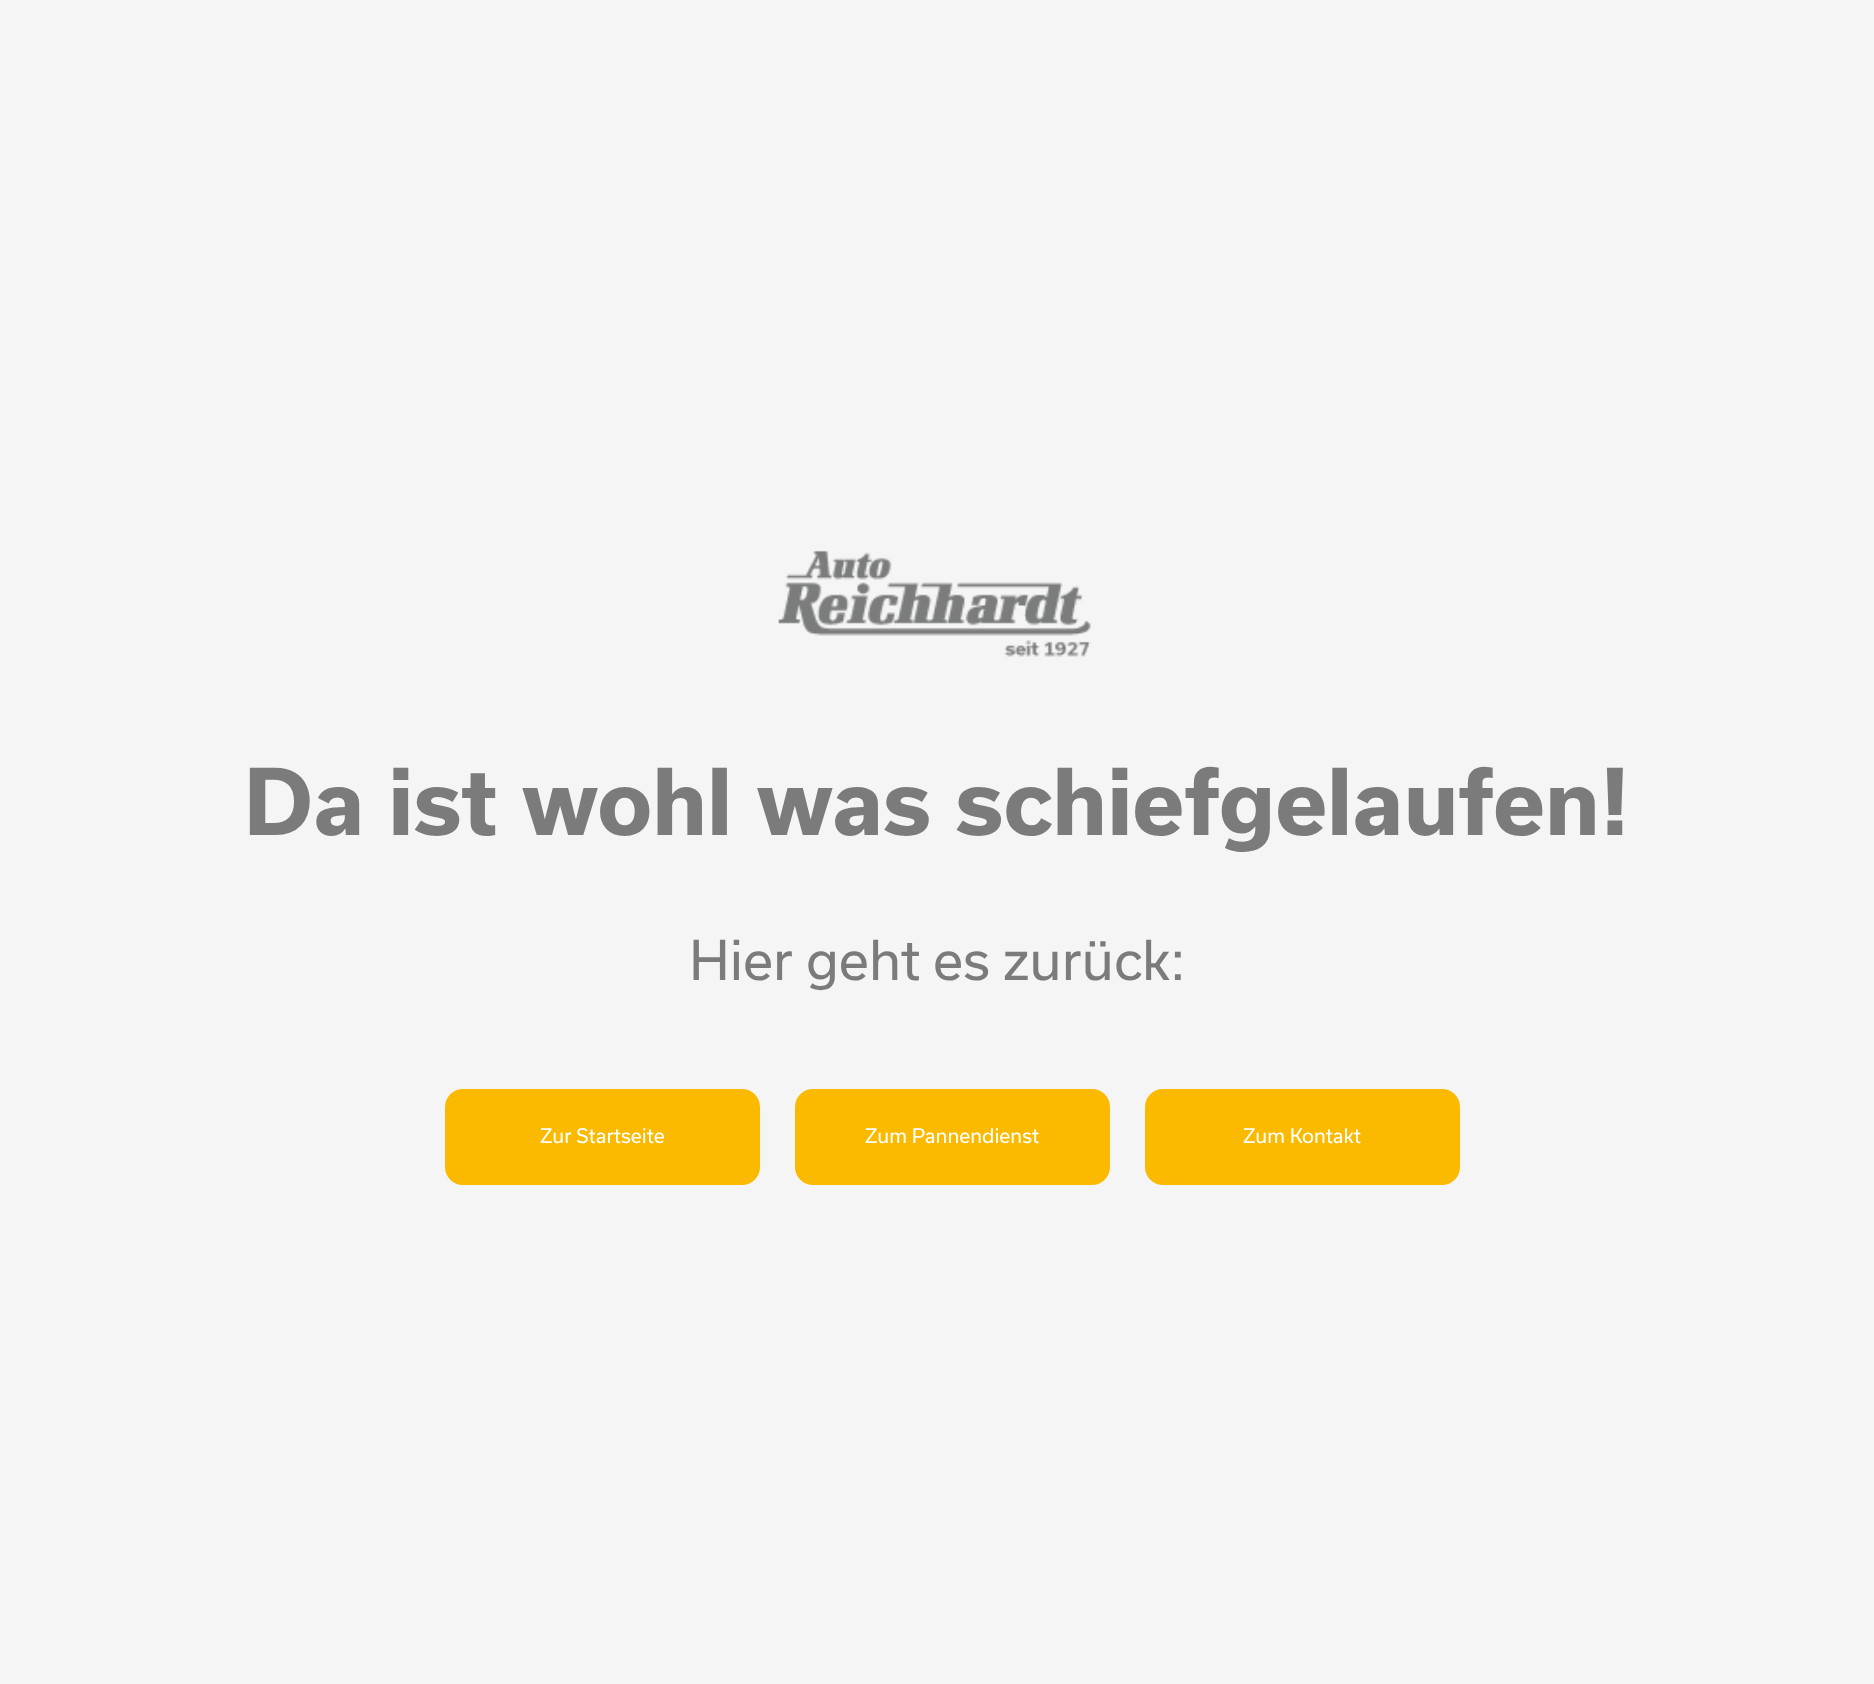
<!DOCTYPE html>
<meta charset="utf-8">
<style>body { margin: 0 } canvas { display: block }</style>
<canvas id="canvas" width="1874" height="1684"></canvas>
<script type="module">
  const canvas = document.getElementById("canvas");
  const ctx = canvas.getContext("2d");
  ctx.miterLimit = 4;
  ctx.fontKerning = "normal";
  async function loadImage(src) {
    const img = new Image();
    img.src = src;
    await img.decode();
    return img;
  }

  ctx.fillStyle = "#f6f5f5";
  ctx.fillRect(0, 0, 1874, 1684);
  ctx.drawImage(await loadImage("img1.png"), 778, 550, 313, 107);
  ctx.font = "bold 87.5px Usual";
  ctx.fillStyle = "#7b7b7b";
  ctx.fillText("Da ist wohl was schiefgelaufen!", 244, 835);
  ctx.font = "52.5px Usual";
  ctx.fillText("Hier geht es zurück:", 689, 980);
  ctx.fillStyle = "#fbba00";
  ctx.beginPath();
  ctx.roundRect(445, 1089, 315, 96, 18);
  ctx.fill();
  ctx.font = "19.25px Usual";
  ctx.fillStyle = "#ffffff";
  ctx.fillText("Zur Startseite", 540, 1143);
  ctx.fillStyle = "#fbba00";
  ctx.beginPath();
  ctx.roundRect(795, 1089, 315, 96, 18);
  ctx.fill();
  ctx.fillStyle = "#ffffff";
  ctx.fillText("Zum Pannendienst", 865, 1143);
  ctx.fillStyle = "#fbba00";
  ctx.beginPath();
  ctx.roundRect(1145, 1089, 315, 96, 18);
  ctx.fill();
  ctx.fillStyle = "#ffffff";
  ctx.fillText("Zum Kontakt", 1243, 1143);
</script>
